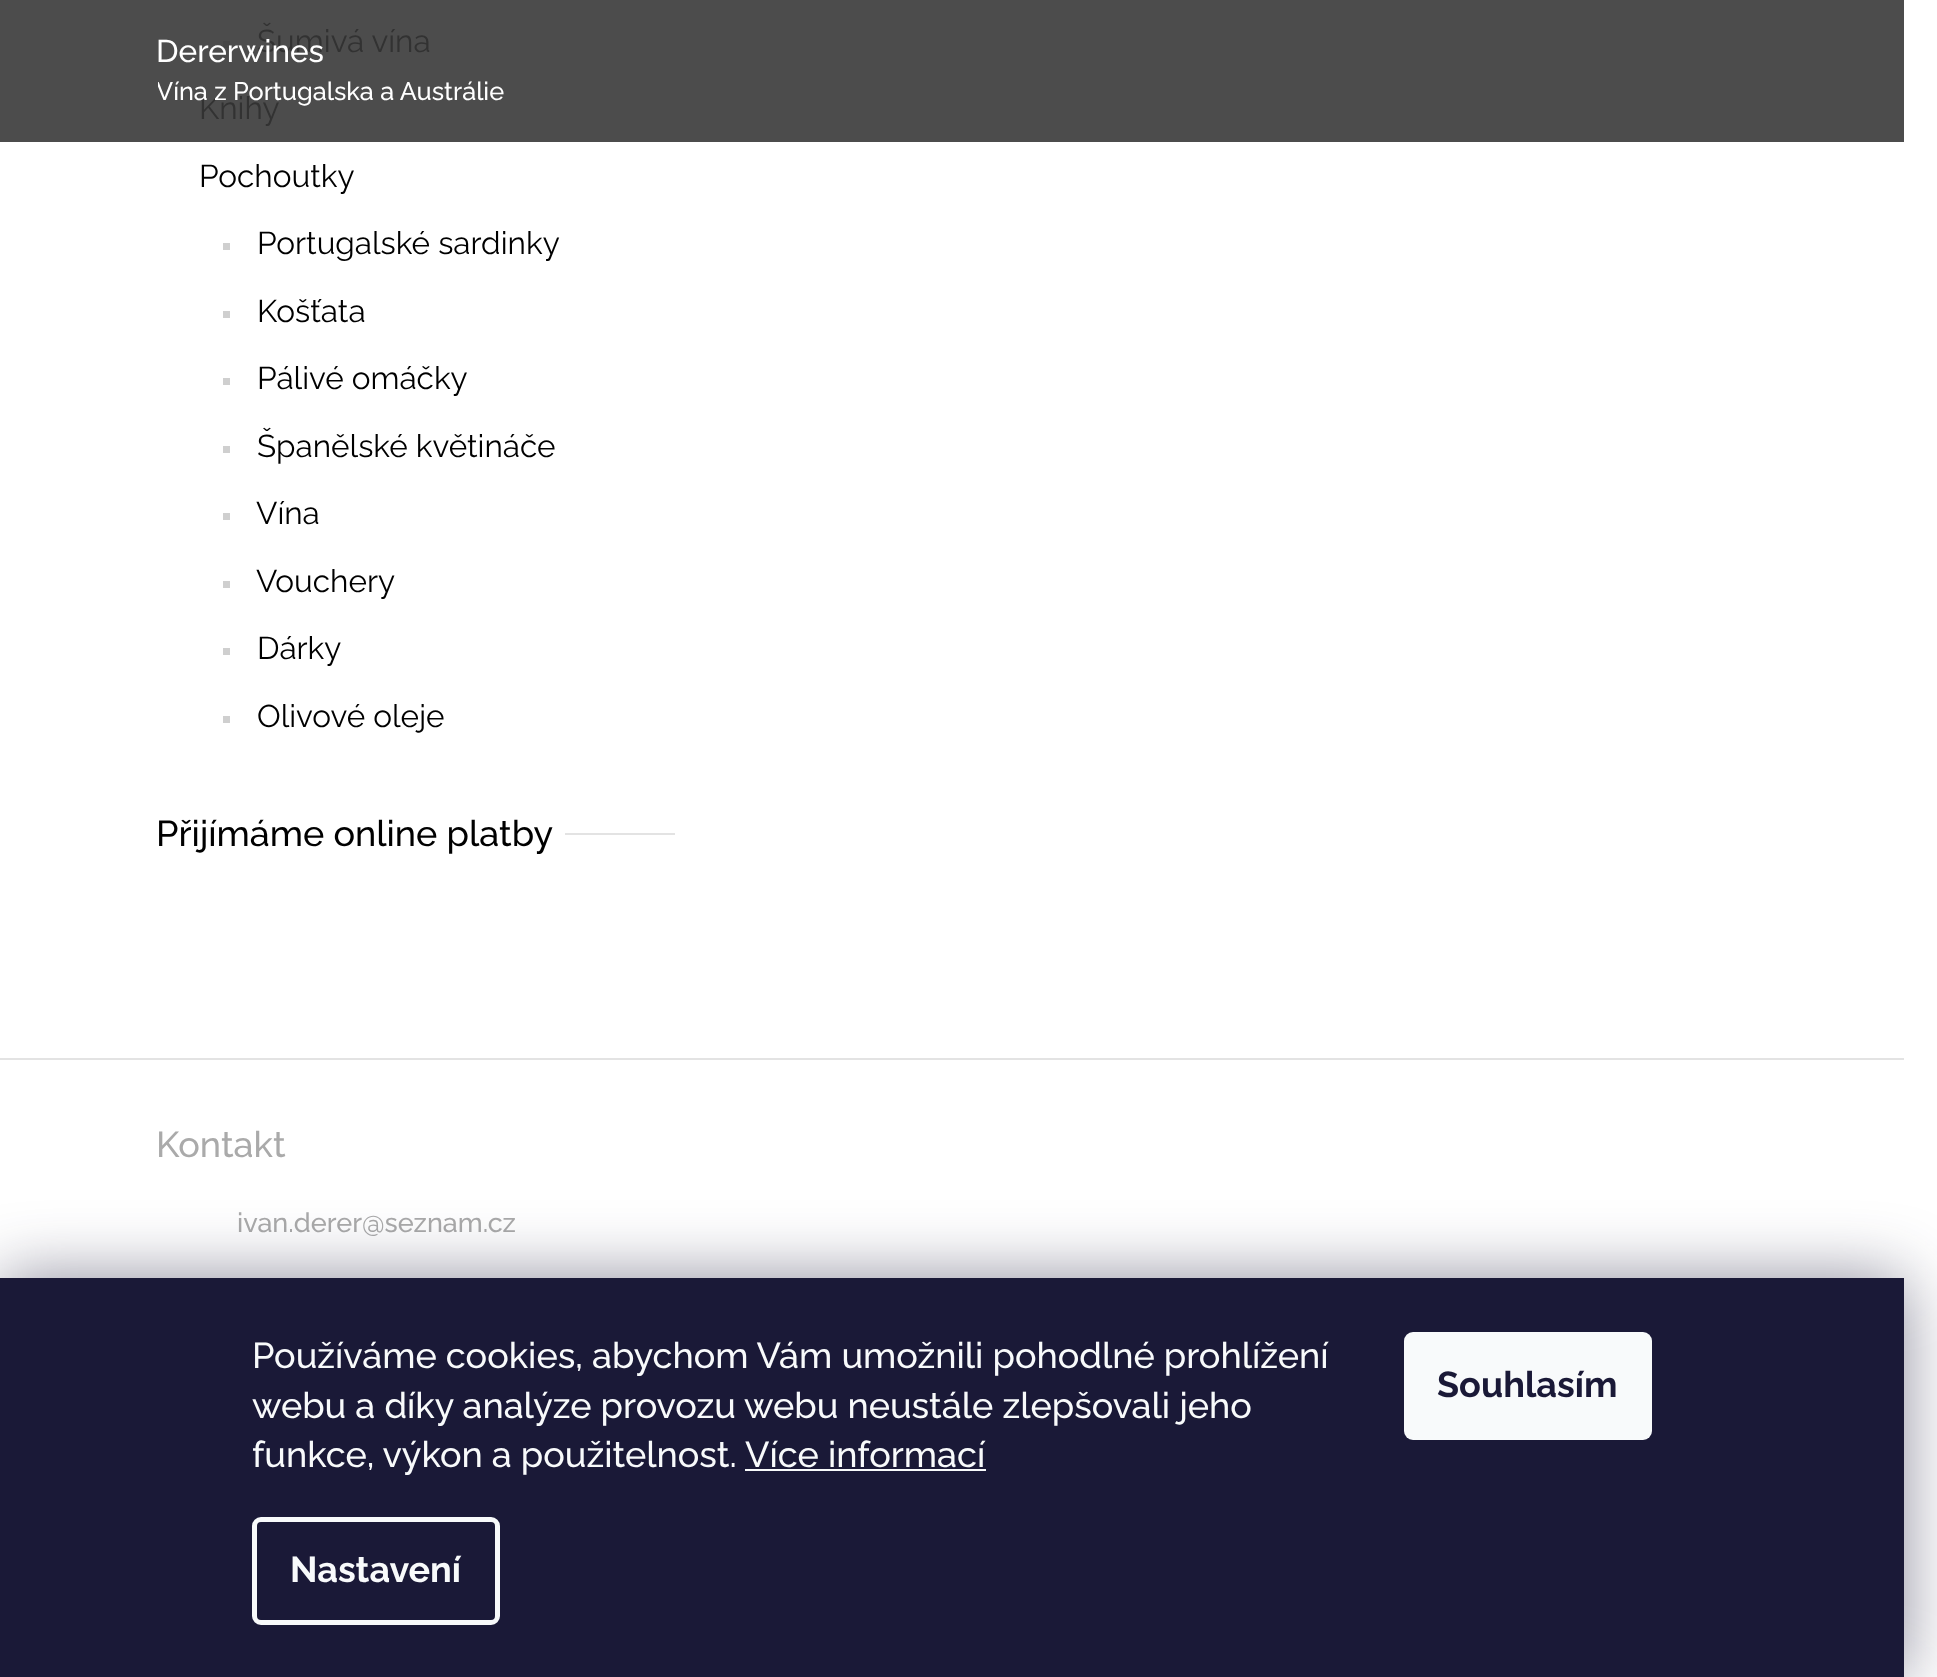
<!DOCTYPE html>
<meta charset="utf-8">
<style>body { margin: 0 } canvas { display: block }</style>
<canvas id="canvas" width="1937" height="1677"></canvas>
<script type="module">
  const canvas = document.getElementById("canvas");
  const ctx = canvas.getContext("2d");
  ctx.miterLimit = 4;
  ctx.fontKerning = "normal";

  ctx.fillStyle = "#ffffff";
  ctx.fillRect(0, 0, 1937, 1677);
  ctx.fillStyle = "#4c4c4c";
  ctx.fillRect(0, 0, 1904, 142);
  ctx.fillStyle = "#474747";
  ctx.fillRect(223, 41, 7, 7);
  ctx.font = "31.5px Raleway";
  ctx.fillStyle = "#323232";
  ctx.fillText("Šumivá vína", 257, 52);
  ctx.fillText("Knihy", 199, 119);
  ctx.fillStyle = "#000000";
  ctx.fillText("Pochoutky", 199, 187);
  ctx.fillStyle = "#cfcfcf";
  ctx.fillRect(223, 243, 7, 7);
  ctx.fillStyle = "#000000";
  ctx.fillText("Portugalské sardinky", 257, 254);
  ctx.fillStyle = "#cfcfcf";
  ctx.fillRect(223, 311, 7, 7);
  ctx.fillStyle = "#000000";
  ctx.fillText("Košťata", 257, 322);
  ctx.fillStyle = "#cfcfcf";
  ctx.fillRect(223, 378, 7, 7);
  ctx.fillStyle = "#000000";
  ctx.fillText("Pálivé omáčky", 257, 389);
  ctx.fillStyle = "#cfcfcf";
  ctx.fillRect(223, 446, 7, 7);
  ctx.fillStyle = "#000000";
  ctx.fillText("Španělské květináče", 257, 457);
  ctx.fillStyle = "#cfcfcf";
  ctx.fillRect(223, 513, 7, 7);
  ctx.fillStyle = "#000000";
  ctx.fillText("Vína", 256, 524);
  ctx.fillStyle = "#cfcfcf";
  ctx.fillRect(223, 581, 7, 7);
  ctx.fillStyle = "#000000";
  ctx.fillText("Vouchery", 256, 592);
  ctx.fillStyle = "#cfcfcf";
  ctx.fillRect(223, 648, 7, 7);
  ctx.fillStyle = "#000000";
  ctx.fillText("Dárky", 257, 659);
  ctx.fillStyle = "#cfcfcf";
  ctx.fillRect(223, 716, 7, 7);
  ctx.fillStyle = "#000000";
  ctx.fillText("Olivové oleje", 257, 727);
  ctx.font = "500 36px Raleway";
  ctx.fillText("Přijímáme online platby", 156, 846);
  ctx.fillStyle = "#e3e3e3";
  ctx.fillRect(565, 833, 110, 2);
  ctx.font = "500 31.5px Raleway";
  ctx.fillStyle = "#ffffff";
  ctx.fillText("Dererwines", 156, 62);
  ctx.save();
  ctx.beginPath();
  ctx.rect(158, 72, 346, 41);
  ctx.clip();
  ctx.font = "500 25.25px Raleway";
  ctx.fillText("Vína z Portugalska a Austrálie", 156, 100);
  ctx.restore();
  ctx.fillStyle = "#e3e3e3";
  ctx.fillRect(0, 1058, 1904, 2);
  ctx.font = "500 36px Raleway";
  ctx.fillStyle = "#aaaaaa";
  ctx.fillText("Kontakt", 156, 1157);
  ctx.font = "500 27px Raleway";
  ctx.fillText("ivan.derer@seznam.cz", 237, 1232);
  ctx.fillStyle = "rgba(27, 25, 57, 0.5)";
  ctx.filter = "blur(34px)";
  ctx.beginPath();
  ctx.rect(0, 1278, 1904, 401);
  ctx.fill();
  ctx.filter = "none";
  ctx.fillStyle = "#1a1937";
  ctx.fillRect(0, 1278, 1904, 399);
  ctx.font = "500 36px Raleway";
  ctx.fillStyle = "#f8fafb";
  ctx.fillText("Používáme cookies, abychom Vám umožnili pohodlné prohlížení", 252, 1368);
  ctx.fillText("webu a díky analýze provozu webu neustále zlepšovali jeho", 252, 1418);
  ctx.fillText("funkce, výkon a použitelnost.", 252, 1467);
  ctx.fillText("Více informací", 745, 1467);
  ctx.fillRect(745, 1469, 241, 2);
  ctx.beginPath();
  ctx.roundRect(254.5, 1519.5, 243, 103, 6.5);
  ctx.strokeStyle = "#f8fafb";
  ctx.lineWidth = 5;
  ctx.stroke();
  ctx.font = "bold 36px Raleway";
  ctx.fillText("Nastavení", 290, 1582);
  ctx.beginPath();
  ctx.roundRect(1404, 1332, 248, 108, 9);
  ctx.fill();
  ctx.fillStyle = "#1a1937";
  ctx.fillText("Souhlasím", 1437, 1397);
</script>
